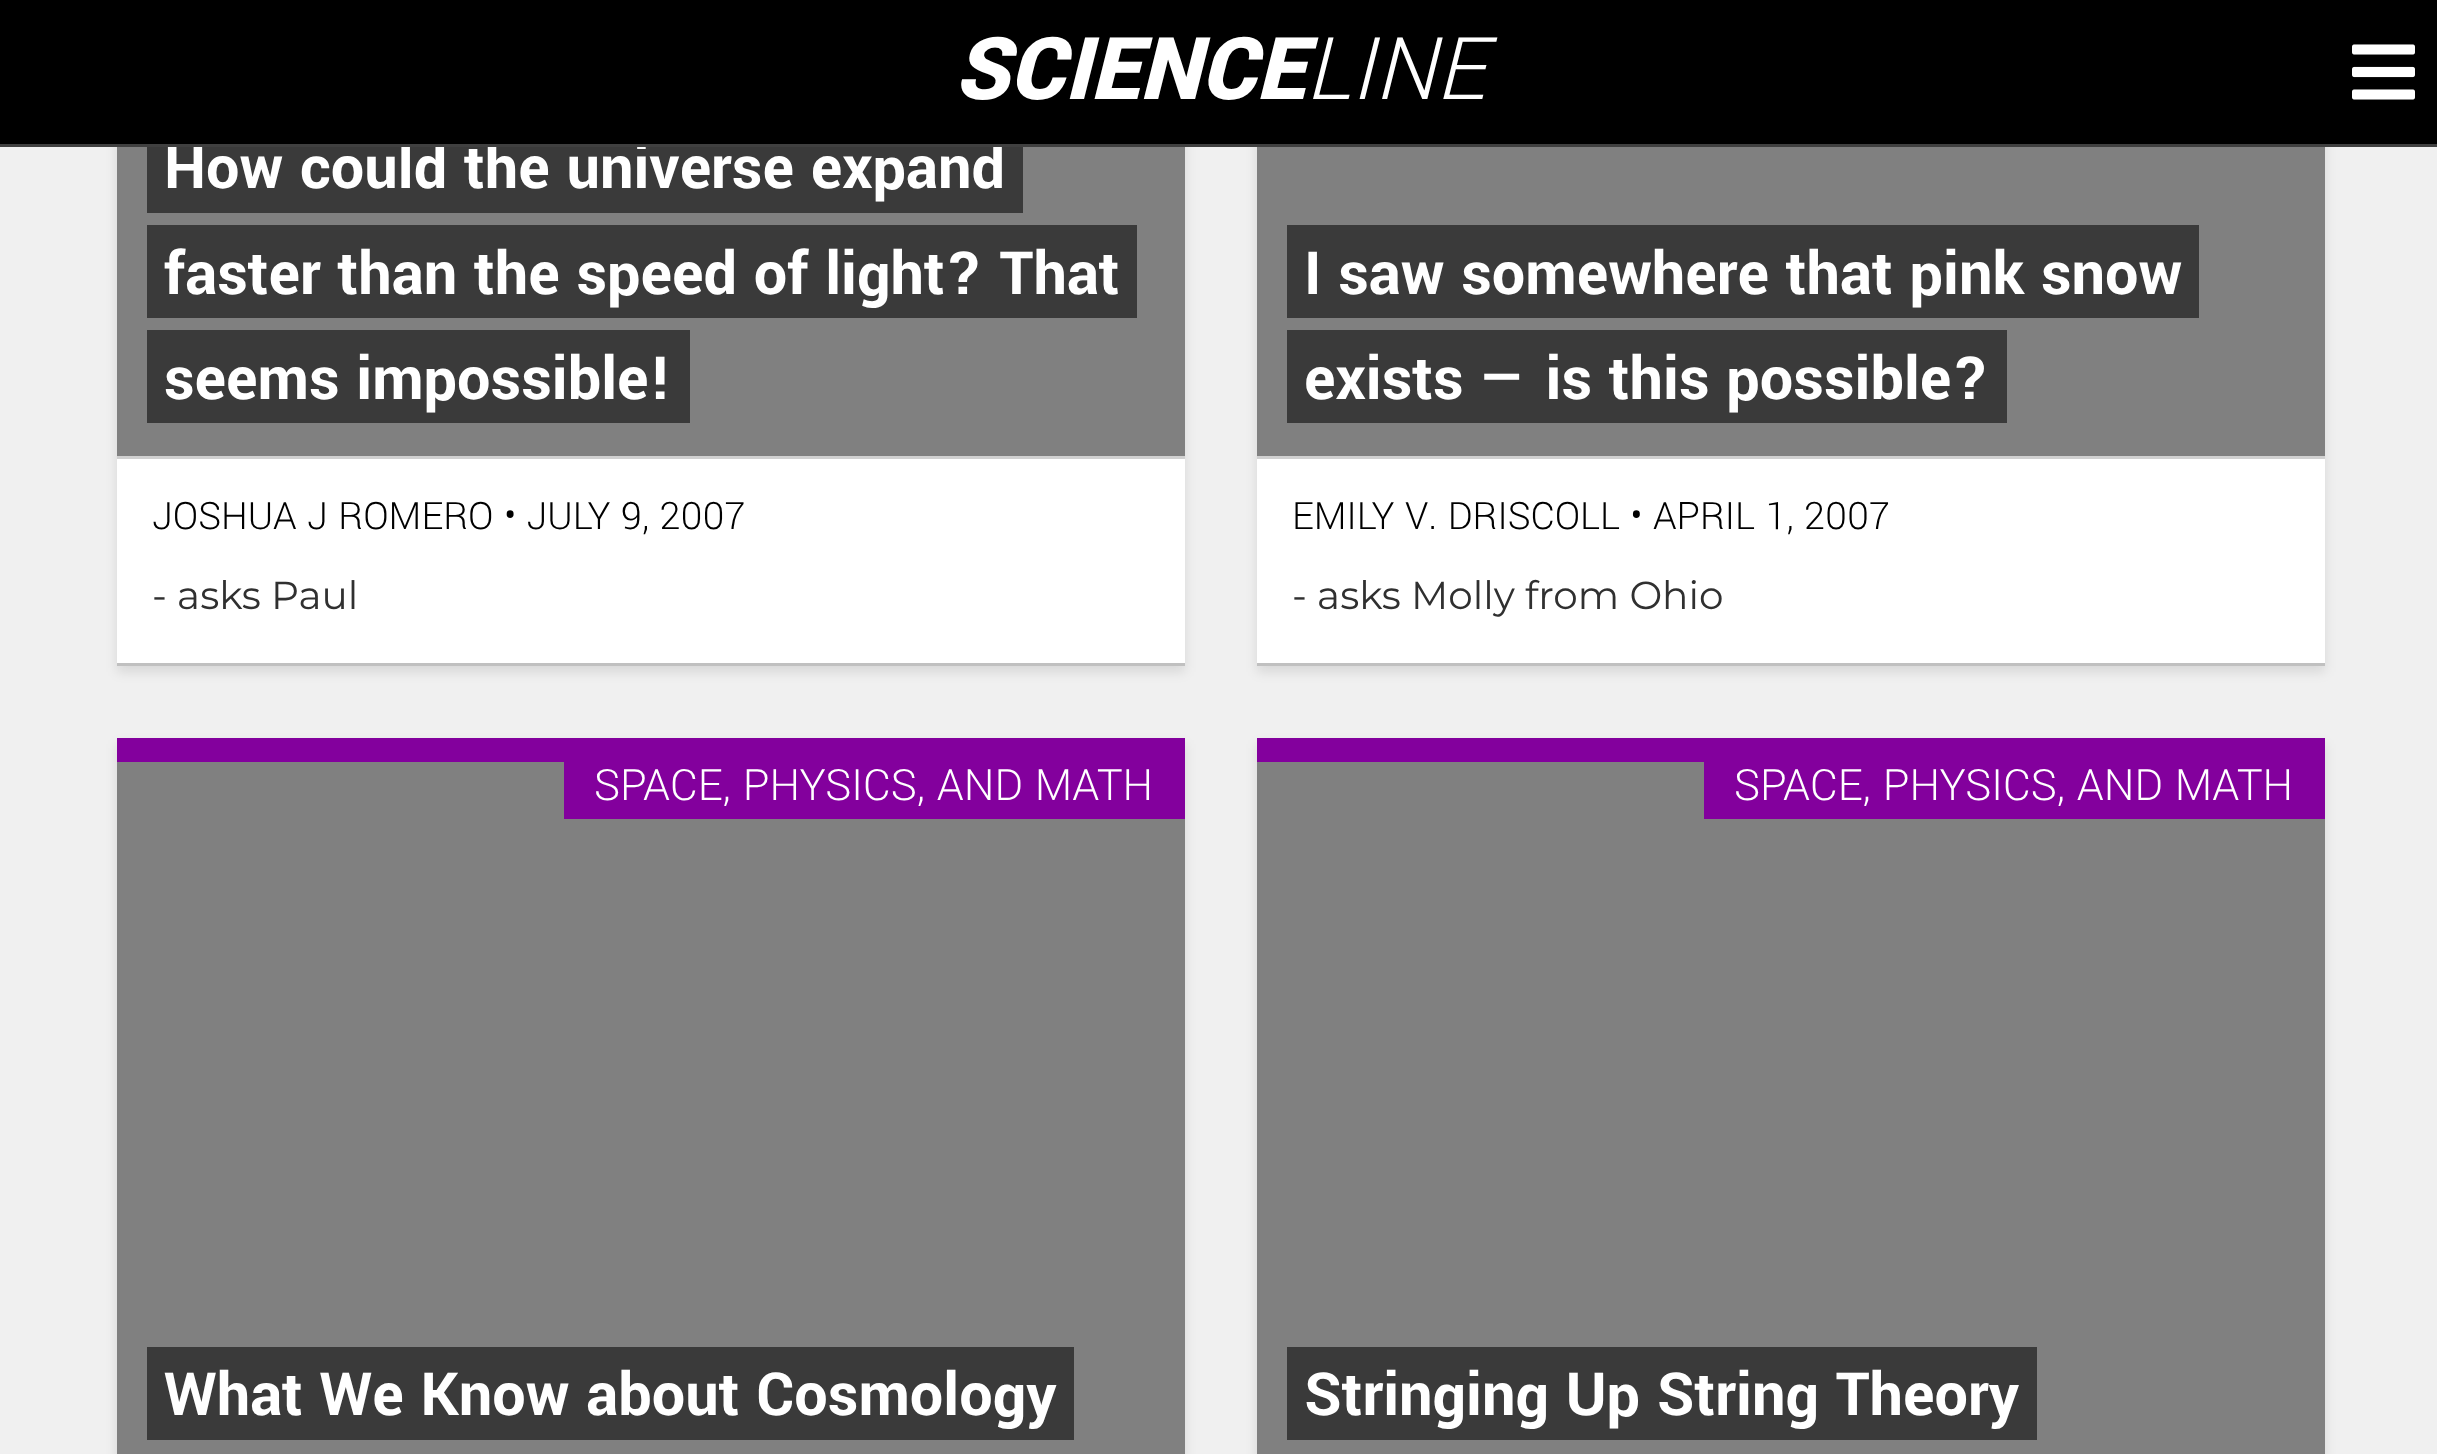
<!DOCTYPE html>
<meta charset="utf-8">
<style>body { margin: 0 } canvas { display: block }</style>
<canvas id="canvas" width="2437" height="1454"></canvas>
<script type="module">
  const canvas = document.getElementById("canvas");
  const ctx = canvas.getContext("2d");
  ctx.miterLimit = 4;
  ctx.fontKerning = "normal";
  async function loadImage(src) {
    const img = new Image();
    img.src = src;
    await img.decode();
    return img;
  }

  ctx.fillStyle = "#f0f0f0";
  ctx.fillRect(0, 0, 2437, 1454);
  ctx.fillStyle = "rgba(0, 0, 0, 0.1)";
  ctx.filter = "blur(6px)";
  ctx.beginPath();
  ctx.rect(117, -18, 1068, 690);
  ctx.fill();
  ctx.filter = "none";
  ctx.fillStyle = "#808080";
  ctx.fillRect(117, 147, 1068, 309);
  ctx.fillStyle = "#3a3a3a";
  ctx.fillRect(165, 147, 858, 66);
  ctx.font = "bold 66px Yantramanav";
  ctx.fillStyle = "#ffffff";
  ctx.fillText("How could the universe expand", 164, 188);
  ctx.fillStyle = "rgba(0, 0, 0, 0.1)";
  ctx.filter = "blur(6px)";
  ctx.beginPath();
  ctx.rect(1257, -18, 1068, 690);
  ctx.fill();
  ctx.filter = "none";
  ctx.fillStyle = "#000000";
  ctx.fillRect(0, 0, 2437, 144);
  ctx.fillStyle = "#404040";
  ctx.fillRect(0, 144, 2437, 3);
  ctx.font = "italic 900 96px Yantramanav";
  ctx.fillStyle = "#ffffff";
  ctx.fillText("SCIENCE", 954, 99);
  ctx.font = "italic 300 96px Yantramanav";
  ctx.fillText("LINE", 1305, 99);
  ctx.drawImage(await loadImage("img1.png"), 2352, 44, 63, 56);
  ctx.fillRect(117, 459, 1068, 204);
  ctx.fillStyle = "#c0c0c0";
  ctx.fillRect(117, 663, 1068, 3);
  ctx.fillStyle = "#3a3a3a";
  ctx.fillRect(147, 147, 18, 66);
  ctx.fillRect(147, 225, 18, 93);
  ctx.fillRect(165, 225, 972, 93);
  ctx.font = "bold 66px Yantramanav";
  ctx.fillStyle = "#ffffff";
  ctx.fillText("faster than the speed of light? That", 164, 294);
  ctx.fillStyle = "#3a3a3a";
  ctx.fillRect(165, 330, 525, 93);
  ctx.fillStyle = "#ffffff";
  ctx.fillText("seems impossible!", 164, 399);
  ctx.fillStyle = "#3a3a3a";
  ctx.fillRect(147, 330, 18, 93);
  ctx.fillStyle = "#d0d0d0";
  ctx.fillRect(117, 456, 1068, 3);
  ctx.font = "300 42px Yantramanav";
  ctx.fillStyle = "#000000";
  ctx.fillText("JOSHUA J ROMERO • JULY 9, 2007", 152, 529);
  ctx.font = "39px Montserrat";
  ctx.fillStyle = "#303030";
  ctx.fillText("- asks Paul", 152, 609);
  ctx.fillStyle = "#ffffff";
  ctx.fillRect(1257, 459, 1068, 204);
  ctx.fillStyle = "#c0c0c0";
  ctx.fillRect(1257, 663, 1068, 3);
  ctx.fillStyle = "#808080";
  ctx.fillRect(1257, 147, 1068, 309);
  ctx.fillStyle = "#3a3a3a";
  ctx.fillRect(1305, 225, 894, 93);
  ctx.font = "bold 66px Yantramanav";
  ctx.fillStyle = "#ffffff";
  ctx.fillText("I saw somewhere that pink snow", 1304, 294);
  ctx.fillStyle = "#3a3a3a";
  ctx.fillRect(1287, 225, 18, 93);
  ctx.fillRect(1305, 330, 702, 93);
  ctx.fillStyle = "#ffffff";
  ctx.fillText("exists — is this possible?", 1304, 399);
  ctx.fillStyle = "#3a3a3a";
  ctx.fillRect(1287, 330, 18, 93);
  ctx.fillStyle = "#d0d0d0";
  ctx.fillRect(1257, 456, 1068, 3);
  ctx.font = "300 42px Yantramanav";
  ctx.fillStyle = "#000000";
  ctx.fillText("EMILY V. DRISCOLL • APRIL 1, 2007", 1292, 529);
  ctx.font = "39px Montserrat";
  ctx.fillStyle = "#303030";
  ctx.fillText("- asks Molly from Ohio", 1292, 609);
  ctx.fillStyle = "rgba(0, 0, 0, 0.1)";
  ctx.filter = "blur(6px)";
  ctx.beginPath();
  ctx.rect(117, 744, 1068, 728);
  ctx.fill();
  ctx.filter = "none";
  ctx.fillStyle = "#83009d";
  ctx.fillRect(117, 738, 1068, 24);
  ctx.fillStyle = "#808080";
  ctx.fillRect(117, 762, 1068, 692);
  ctx.fillStyle = "#83009d";
  ctx.fillRect(564, 762, 621, 57);
  ctx.font = "300 48px Yantramanav";
  ctx.fillStyle = "#ffffff";
  ctx.fillText("SPACE, PHYSICS, AND MATH", 594, 800);
  ctx.fillStyle = "#3a3a3a";
  ctx.fillRect(147, 1347, 18, 93);
  ctx.fillRect(165, 1347, 909, 93);
  ctx.font = "bold 66px Yantramanav";
  ctx.fillStyle = "#ffffff";
  ctx.fillText("What We Know about Cosmology", 164, 1415);
  ctx.fillStyle = "rgba(0, 0, 0, 0.1)";
  ctx.filter = "blur(6px)";
  ctx.beginPath();
  ctx.rect(1257, 744, 1068, 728);
  ctx.fill();
  ctx.filter = "none";
  ctx.fillStyle = "#83009d";
  ctx.fillRect(1257, 738, 1068, 24);
  ctx.fillStyle = "#808080";
  ctx.fillRect(1257, 762, 1068, 692);
  ctx.fillStyle = "#83009d";
  ctx.fillRect(1704, 762, 621, 57);
  ctx.font = "300 48px Yantramanav";
  ctx.fillStyle = "#ffffff";
  ctx.fillText("SPACE, PHYSICS, AND MATH", 1734, 800);
  ctx.fillStyle = "#3a3a3a";
  ctx.fillRect(1305, 1347, 732, 93);
  ctx.font = "bold 66px Yantramanav";
  ctx.fillStyle = "#ffffff";
  ctx.fillText("Stringing Up String Theory", 1304, 1415);
  ctx.fillStyle = "#3a3a3a";
  ctx.fillRect(1287, 1347, 18, 93);
</script>
